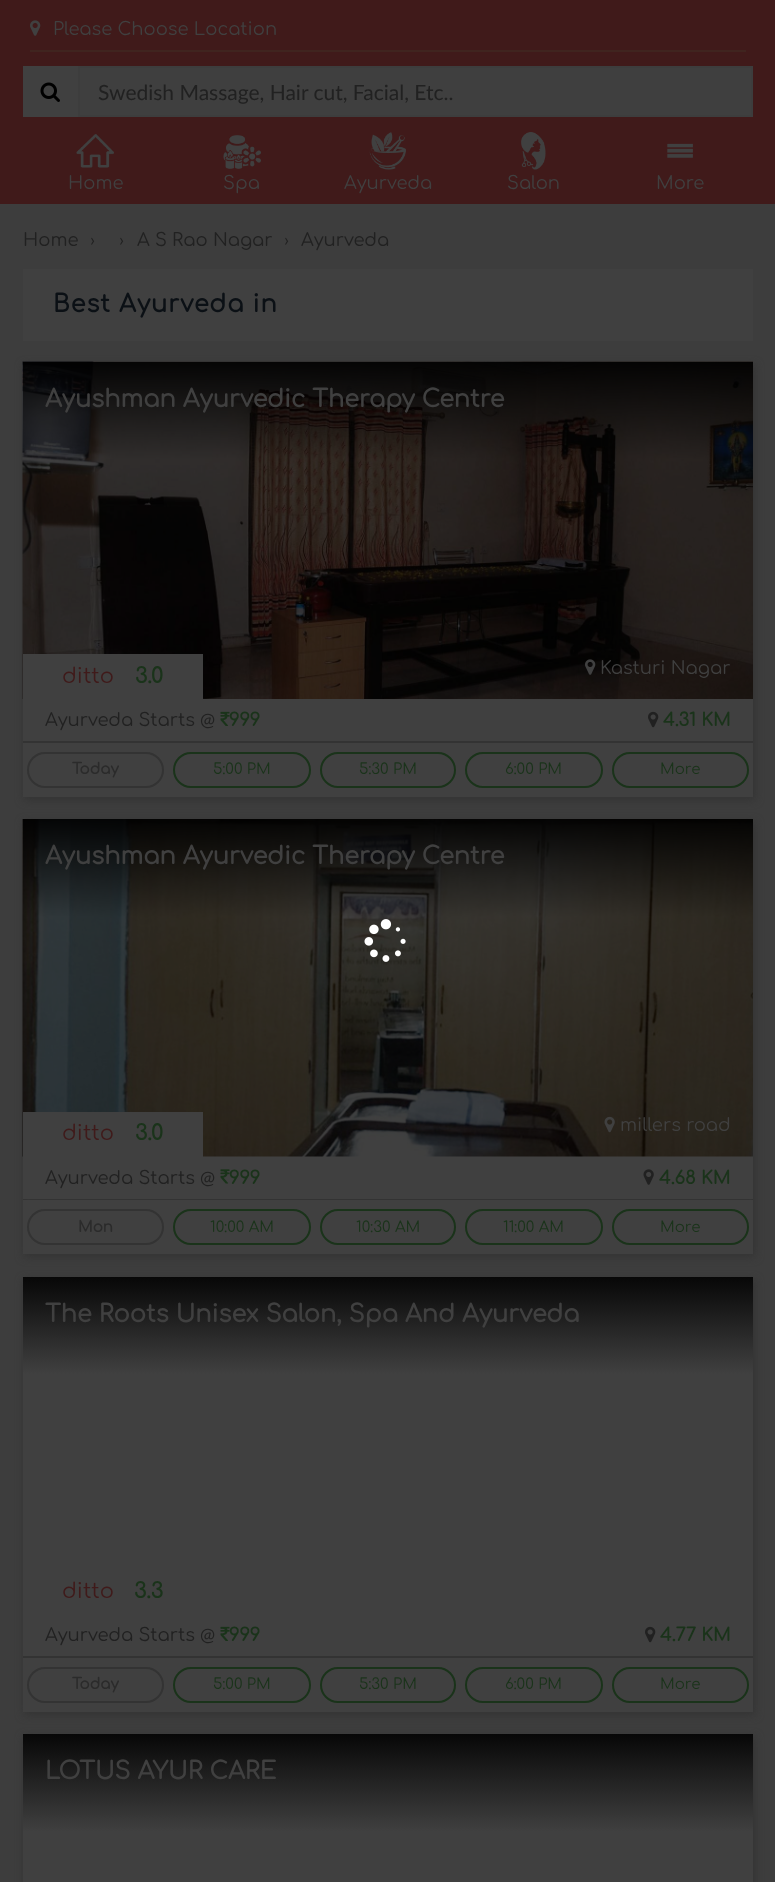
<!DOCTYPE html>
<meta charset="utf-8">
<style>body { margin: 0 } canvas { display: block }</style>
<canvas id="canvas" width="775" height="1882"></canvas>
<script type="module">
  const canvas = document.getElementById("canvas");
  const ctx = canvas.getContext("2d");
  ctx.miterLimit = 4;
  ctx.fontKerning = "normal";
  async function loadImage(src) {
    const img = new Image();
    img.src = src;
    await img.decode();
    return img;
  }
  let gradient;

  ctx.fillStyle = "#3d3d3d";
  ctx.fillRect(0, 0, 775, 1882);
  ctx.fillStyle = "#401a1a";
  ctx.fillRect(0, 0, 775, 204);
  ctx.drawImage(await loadImage("img1.png"), 30, 20, 11, 16);
  ctx.fillStyle = "#40241f";
  ctx.fillRect(30, 50, 716, 2);
  ctx.font = "18px Comfortaa";
  ctx.fillStyle = "#404040";
  ctx.fillText("Please Choose Location", 53, 35);
  ctx.fillRect(23, 66, 55, 51);
  ctx.drawImage(await loadImage("img2.png"), 40, 82, 20, 20);
  ctx.fillStyle = "#3f3f3f";
  ctx.beginPath();
  ctx.rect(79, 67, 673, 49);
  ctx.fill();
  ctx.strokeStyle = "#3d3d3d";
  ctx.lineWidth = 2;
  ctx.stroke();
  ctx.font = "21px Lato";
  ctx.fillStyle = "#212121";
  ctx.fillText("Swedish Massage, Hair cut, Facial, Etc..", 98, 100);
  ctx.drawImage(await loadImage("img3.png"), 76, 134, 38, 34);
  ctx.font = "18px Comfortaa";
  ctx.fillStyle = "#404040";
  ctx.fillText("Home", 68, 189);
  ctx.drawImage(await loadImage("img4.png"), 223, 135, 38, 34);
  ctx.fillText("Spa", 223, 189);
  ctx.drawImage(await loadImage("img5.png"), 369, 132, 37, 38);
  ctx.fillText("Ayurveda", 344, 189);
  ctx.drawImage(await loadImage("img6.png"), 521, 132, 25, 38);
  ctx.fillText("Salon", 507, 189);
  ctx.drawImage(await loadImage("img7.png"), 667, 143, 26, 15);
  ctx.fillText("More", 656, 189);
  ctx.fillStyle = "#212121";
  ctx.fillText("Home", 23, 246);
  ctx.font = "18px Lato";
  ctx.fillText("›", 90, 246);
  ctx.fillText("›", 119, 246);
  ctx.font = "18px Comfortaa";
  ctx.fillText("A S Rao Nagar", 137, 246);
  ctx.font = "18px Lato";
  ctx.fillText("›", 284, 246);
  ctx.font = "18px Comfortaa";
  ctx.fillText("Ayurveda", 301, 246);
  ctx.fillStyle = "#404040";
  ctx.fillRect(23, 269, 730, 72);
  ctx.letterSpacing = "1px";
  ctx.font = "bold 24px Comfortaa";
  ctx.fillStyle = "#0b1015";
  ctx.fillText("Best Ayurveda in", 53, 312);
  ctx.fillStyle = "#333333";
  ctx.filter = "blur(4px)";
  ctx.beginPath();
  ctx.rect(24, 365, 731, 435);
  ctx.fill();
  ctx.filter = "none";
  ctx.fillStyle = "#404040";
  ctx.fillRect(23, 699, 730, 98);
  ctx.drawImage(await loadImage("img8.png"), 22, 361, 731, 338);
  ctx.letterSpacing = "0px";
  ctx.fillText("Ayushman Ayurvedic Therapy Centre", 45, 407);
  ctx.fillRect(23, 654, 180, 45);
  ctx.font = "21px Comfortaa";
  ctx.fillStyle = "#401a1a";
  ctx.fillText("ditto", 62, 683);
  ctx.font = "bold 21px Comfortaa";
  ctx.fillStyle = "#1a331a";
  ctx.fillText("3.0", 135, 683);
  ctx.drawImage(await loadImage("img9.png"), 585, 659, 11, 16);
  ctx.font = "18px Comfortaa";
  ctx.fillStyle = "#404040";
  ctx.fillText("Kasturi Nagar", 600, 674);
  ctx.fillStyle = "#333333";
  ctx.fillRect(23, 741, 730, 2);
  ctx.fillStyle = "#212121";
  ctx.fillText("Ayurveda Starts", 45, 726);
  ctx.font = "18px Lato";
  ctx.fillText("@", 200, 726);
  ctx.drawImage(await loadImage("img10.png"), 220, 711, 10, 15);
  ctx.font = "bold 18px Comfortaa";
  ctx.fillStyle = "#1a331a";
  ctx.fillText("999", 229, 726);
  ctx.drawImage(await loadImage("img11.png"), 648, 711, 11, 17);
  ctx.fillText("4.31 KM", 663, 726);
  ctx.beginPath();
  ctx.roundRect(28, 753, 135, 34, 17);
  ctx.strokeStyle = "#333333";
  ctx.stroke();
  ctx.font = "bold 15px Comfortaa";
  ctx.fillStyle = "#2b2b2b";
  ctx.fillText("Today", 72, 774);
  ctx.beginPath();
  ctx.roundRect(174, 753, 136, 34, 17);
  ctx.strokeStyle = "#1a331a";
  ctx.stroke();
  ctx.font = "15px Comfortaa";
  ctx.fillStyle = "#1a331a";
  ctx.fillText("5:00 PM", 213, 774);
  ctx.beginPath();
  ctx.roundRect(321, 753, 134, 34, 17);
  ctx.stroke();
  ctx.fillText("5:30 PM", 359, 774);
  ctx.beginPath();
  ctx.roundRect(466, 753, 136, 34, 17);
  ctx.stroke();
  ctx.fillText("6:00 PM", 505, 774);
  ctx.beginPath();
  ctx.roundRect(613, 753, 135, 34, 17);
  ctx.stroke();
  ctx.fillText("More", 660, 774);
  ctx.fillStyle = "#333333";
  ctx.filter = "blur(4px)";
  ctx.beginPath();
  ctx.rect(24, 822, 731, 435);
  ctx.fill();
  ctx.filter = "none";
  ctx.fillStyle = "#404040";
  ctx.fillRect(23, 1156, 730, 43);
  ctx.drawImage(await loadImage("img12.png"), 22, 819, 731, 338);
  ctx.font = "bold 24px Comfortaa";
  ctx.fillText("Ayushman Ayurvedic Therapy Centre", 45, 864);
  ctx.fillRect(23, 1112, 180, 45);
  ctx.font = "21px Comfortaa";
  ctx.fillStyle = "#401a1a";
  ctx.fillText("ditto", 62, 1140);
  ctx.font = "bold 21px Comfortaa";
  ctx.fillStyle = "#1a331a";
  ctx.fillText("3.0", 135, 1140);
  ctx.drawImage(await loadImage("img13.png"), 604, 1116, 11, 17);
  ctx.font = "18px Comfortaa";
  ctx.fillStyle = "#404040";
  ctx.fillText("millers road", 620, 1131);
  ctx.fillStyle = "#333333";
  ctx.fillRect(23, 1199, 4, 1);
  ctx.fillStyle = "#212121";
  ctx.fillText("Ayurveda Starts", 45, 1184);
  ctx.font = "18px Lato";
  ctx.fillText("@", 200, 1184);
  ctx.drawImage(await loadImage("img14.png"), 220, 1169, 10, 15);
  ctx.font = "bold 18px Comfortaa";
  ctx.fillStyle = "#1a331a";
  ctx.fillText("999", 229, 1184);
  ctx.fillStyle = "#333333";
  ctx.fillRect(752, 1199, 1, 1);
  ctx.drawImage(await loadImage("img15.png"), 643, 1169, 11, 16);
  ctx.fillStyle = "#1a331a";
  ctx.fillText("4.68 KM", 659, 1184);
  ctx.fillStyle = "#404040";
  ctx.fillRect(23, 1200, 730, 54);
  ctx.beginPath();
  ctx.roundRect(28, 1210, 135, 34, 17);
  ctx.strokeStyle = "#333333";
  ctx.stroke();
  ctx.font = "bold 15px Comfortaa";
  ctx.fillStyle = "#2b2b2b";
  ctx.fillText("Mon", 78, 1232);
  ctx.beginPath();
  ctx.roundRect(174, 1210, 136, 34, 17);
  ctx.strokeStyle = "#1a331a";
  ctx.stroke();
  ctx.font = "15px Comfortaa";
  ctx.fillStyle = "#1a331a";
  ctx.fillText("10:00 AM", 210, 1232);
  ctx.beginPath();
  ctx.roundRect(321, 1210, 134, 34, 17);
  ctx.stroke();
  ctx.fillText("10:30 AM", 356, 1232);
  ctx.beginPath();
  ctx.roundRect(466, 1210, 136, 34, 17);
  ctx.stroke();
  ctx.fillText("11:00 AM", 503, 1232);
  ctx.beginPath();
  ctx.roundRect(613, 1210, 135, 34, 17);
  ctx.stroke();
  ctx.fillText("More", 660, 1232);
  ctx.fillStyle = "#333333";
  ctx.filter = "blur(4px)";
  ctx.beginPath();
  ctx.rect(24, 1280, 731, 435);
  ctx.fill();
  ctx.filter = "none";
  ctx.fillStyle = "#404040";
  ctx.fillRect(23, 1374, 730, 338);
  gradient = ctx.createLinearGradient(388, 1277, 388, 1374);
  gradient.addColorStop(0, "#070707");
  gradient.addColorStop(1, "#404040");
  ctx.fillStyle = gradient;
  ctx.fillRect(23, 1277, 730, 97);
  ctx.font = "bold 24px Comfortaa";
  ctx.fillStyle = "#404040";
  ctx.fillText("The Roots Unisex Salon, Spa And Ayurveda", 45, 1322);
  ctx.font = "21px Comfortaa";
  ctx.fillStyle = "#401a1a";
  ctx.fillText("ditto", 62, 1598);
  ctx.font = "bold 21px Comfortaa";
  ctx.fillStyle = "#1a331a";
  ctx.fillText("3.3", 134, 1598);
  ctx.fillStyle = "#333333";
  ctx.fillRect(23, 1656, 730, 2);
  ctx.font = "18px Comfortaa";
  ctx.fillStyle = "#212121";
  ctx.fillText("Ayurveda Starts", 45, 1641);
  ctx.font = "18px Lato";
  ctx.fillText("@", 200, 1641);
  ctx.drawImage(await loadImage("img10.png"), 220, 1626, 10, 15);
  ctx.font = "bold 18px Comfortaa";
  ctx.fillStyle = "#1a331a";
  ctx.fillText("999", 229, 1641);
  ctx.drawImage(await loadImage("img11.png"), 645, 1626, 11, 17);
  ctx.fillText("4.77 KM", 660, 1641);
  ctx.beginPath();
  ctx.roundRect(28, 1668, 135, 34, 17);
  ctx.strokeStyle = "#333333";
  ctx.stroke();
  ctx.font = "bold 15px Comfortaa";
  ctx.fillStyle = "#2b2b2b";
  ctx.fillText("Today", 72, 1689);
  ctx.beginPath();
  ctx.roundRect(174, 1668, 136, 34, 17);
  ctx.strokeStyle = "#1a331a";
  ctx.stroke();
  ctx.font = "15px Comfortaa";
  ctx.fillStyle = "#1a331a";
  ctx.fillText("5:00 PM", 213, 1689);
  ctx.beginPath();
  ctx.roundRect(321, 1668, 134, 34, 17);
  ctx.stroke();
  ctx.fillText("5:30 PM", 359, 1689);
  ctx.beginPath();
  ctx.roundRect(466, 1668, 136, 34, 17);
  ctx.stroke();
  ctx.fillText("6:00 PM", 505, 1689);
  ctx.beginPath();
  ctx.roundRect(613, 1668, 135, 34, 17);
  ctx.stroke();
  ctx.fillText("More", 660, 1689);
  ctx.fillStyle = "#333333";
  ctx.filter = "blur(4px)";
  ctx.beginPath();
  ctx.rect(24, 1737, 731, 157);
  ctx.fill();
  ctx.filter = "none";
  ctx.fillStyle = "#404040";
  ctx.fillRect(23, 1832, 730, 50);
  gradient = ctx.createLinearGradient(388, 1734, 388, 1832);
  gradient.addColorStop(0, "#070707");
  gradient.addColorStop(1, "#404040");
  ctx.fillStyle = gradient;
  ctx.fillRect(23, 1734, 730, 98);
  ctx.font = "bold 24px Comfortaa";
  ctx.fillStyle = "#404040";
  ctx.fillText("LOTUS AYUR CARE", 45, 1779);
  ctx.drawImage(await loadImage("img16.png"), 364, 919, 42, 43);
</script>
